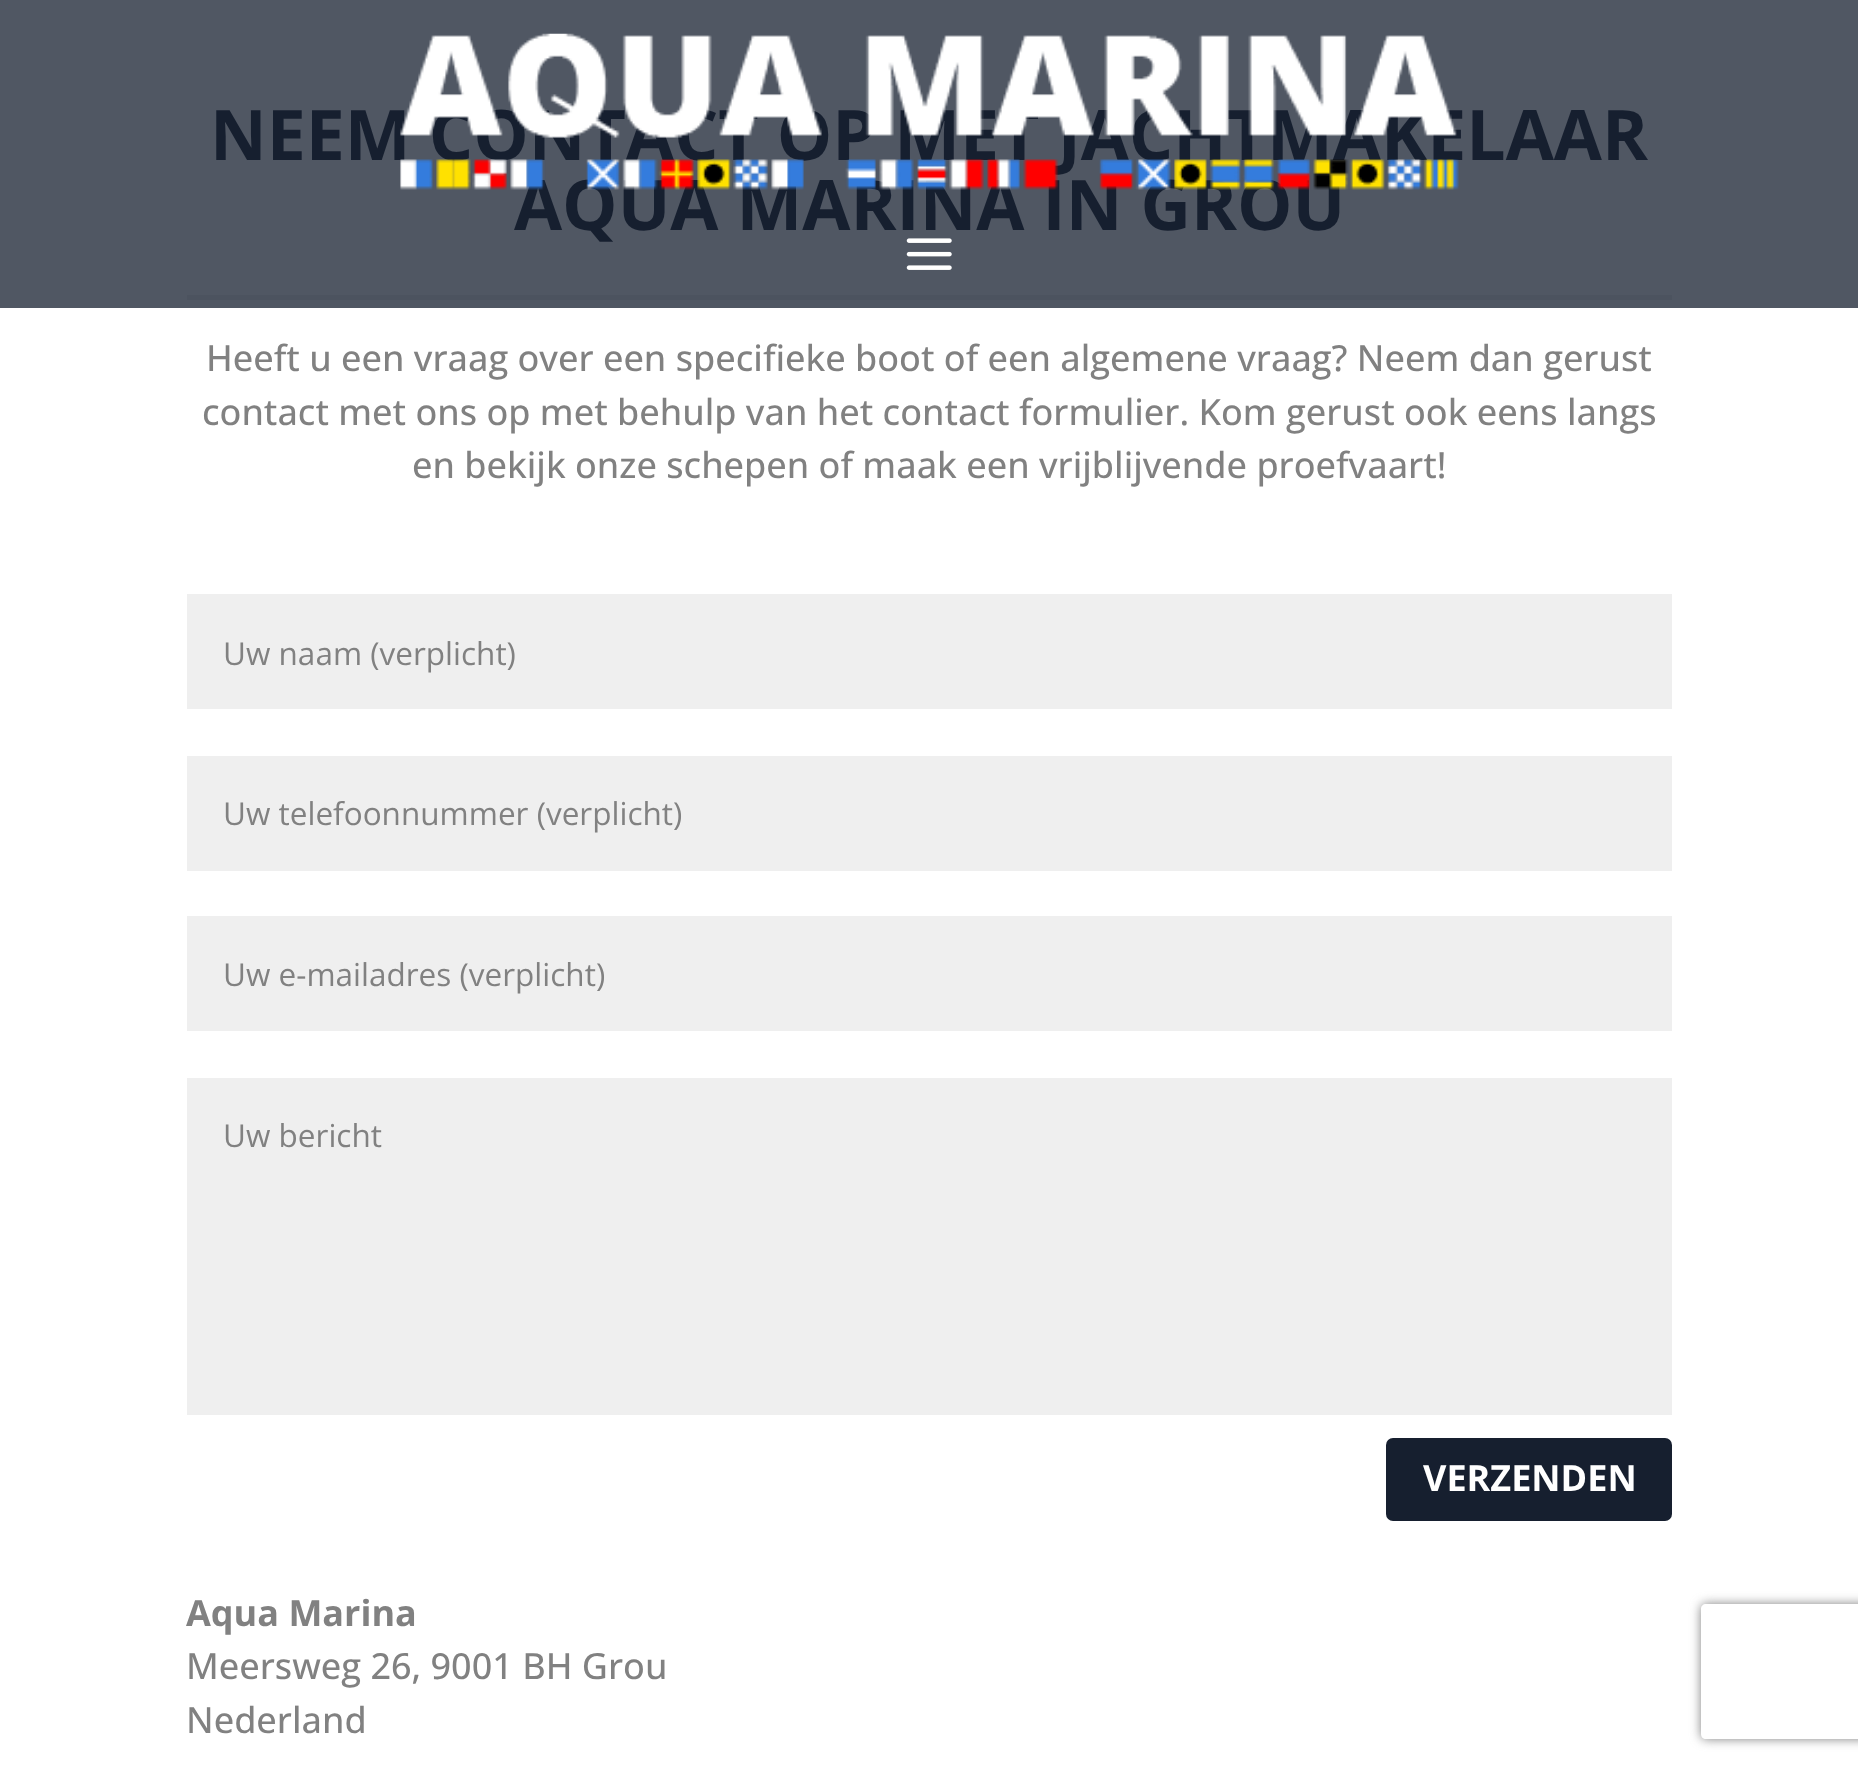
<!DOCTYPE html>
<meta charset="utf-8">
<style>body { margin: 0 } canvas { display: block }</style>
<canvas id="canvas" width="1858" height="1770"></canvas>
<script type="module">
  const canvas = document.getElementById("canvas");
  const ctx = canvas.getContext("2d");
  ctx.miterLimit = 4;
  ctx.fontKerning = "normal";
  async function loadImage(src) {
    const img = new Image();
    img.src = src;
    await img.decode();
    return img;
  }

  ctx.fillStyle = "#ffffff";
  ctx.fillRect(0, 0, 1858, 1770);
  ctx.fillStyle = "#505763";
  ctx.fillRect(0, 0, 1858, 308);
  ctx.font = "bold 69.75px Open Sans";
  ctx.fillStyle = "#161f2f";
  ctx.fillText("NEEM CONTACT OP MET JACHTMAKELAAR", 210, 160);
  ctx.fillText("AQUA MARINA IN GROU", 514, 230);
  ctx.drawImage(await loadImage("img1.png"), 400, 33, 1059, 157);
  ctx.drawImage(await loadImage("img2.png"), 906, 238, 46, 32);
  ctx.fillStyle = "#4c535f";
  ctx.fillRect(187, 295, 1485, 5);
  ctx.font = "500 36px Open Sans";
  ctx.fillStyle = "#818181";
  ctx.fillText("Heeft u een vraag over een specifieke boot of een algemene vraag? Neem dan gerust", 206, 371);
  ctx.fillText("contact met ons op met behulp van het contact formulier. Kom gerust ook eens langs", 202, 425);
  ctx.fillText("en bekijk onze schepen of maak een vrijblijvende proefvaart!", 412, 478);
  ctx.fillStyle = "#efefef";
  ctx.fillRect(187, 594, 1485, 115);
  ctx.font = "31.5px Open Sans";
  ctx.fillStyle = "#818181";
  ctx.fillText("Uw naam (verplicht)", 223, 665);
  ctx.fillStyle = "#efefef";
  ctx.fillRect(187, 756, 1485, 115);
  ctx.fillStyle = "#818181";
  ctx.fillText("Uw telefoonnummer (verplicht)", 223, 825);
  ctx.fillStyle = "#efefef";
  ctx.fillRect(187, 916, 1485, 115);
  ctx.fillStyle = "#818181";
  ctx.fillText("Uw e-mailadres (verplicht)", 223, 986);
  ctx.fillStyle = "#efefef";
  ctx.fillRect(187, 1078, 1485, 337);
  ctx.fillStyle = "#818181";
  ctx.fillText("Uw bericht", 223, 1147);
  ctx.fillStyle = "#161f2f";
  ctx.beginPath();
  ctx.roundRect(1386, 1438, 286, 83, 7);
  ctx.fill();
  ctx.font = "bold 36px Open Sans";
  ctx.fillStyle = "#ffffff";
  ctx.fillText("VERZENDEN", 1423, 1491);
  ctx.fillStyle = "#818181";
  ctx.fillText("Aqua Marina", 186, 1626);
  ctx.font = "500 36px Open Sans";
  ctx.fillText("Meersweg 26, 9001 BH Grou", 186, 1679);
  ctx.fillText("Nederland", 186, 1733);
  ctx.save();
  ctx.beginPath();
  ctx.moveTo(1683, 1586);
  ctx.lineTo(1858, 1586);
  ctx.lineTo(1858, 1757);
  ctx.lineTo(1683, 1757);
  ctx.closePath();
  ctx.moveTo(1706, 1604);
  ctx.lineTo(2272, 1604);
  ctx.bezierCurveTo(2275, 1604, 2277, 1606, 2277, 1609);
  ctx.lineTo(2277, 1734);
  ctx.bezierCurveTo(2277, 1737, 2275, 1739, 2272, 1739);
  ctx.lineTo(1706, 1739);
  ctx.bezierCurveTo(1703, 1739, 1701, 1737, 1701, 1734);
  ctx.lineTo(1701, 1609);
  ctx.bezierCurveTo(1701, 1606, 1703, 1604, 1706, 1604);
  ctx.closePath();
  ctx.clip("evenodd");
  ctx.fillStyle = "#808080";
  ctx.filter = "blur(5.5px)";
  ctx.beginPath();
  ctx.roundRect(1701, 1604, 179, 135, 5);
  ctx.fill();
  ctx.filter = "none";
  ctx.restore();
</script>
